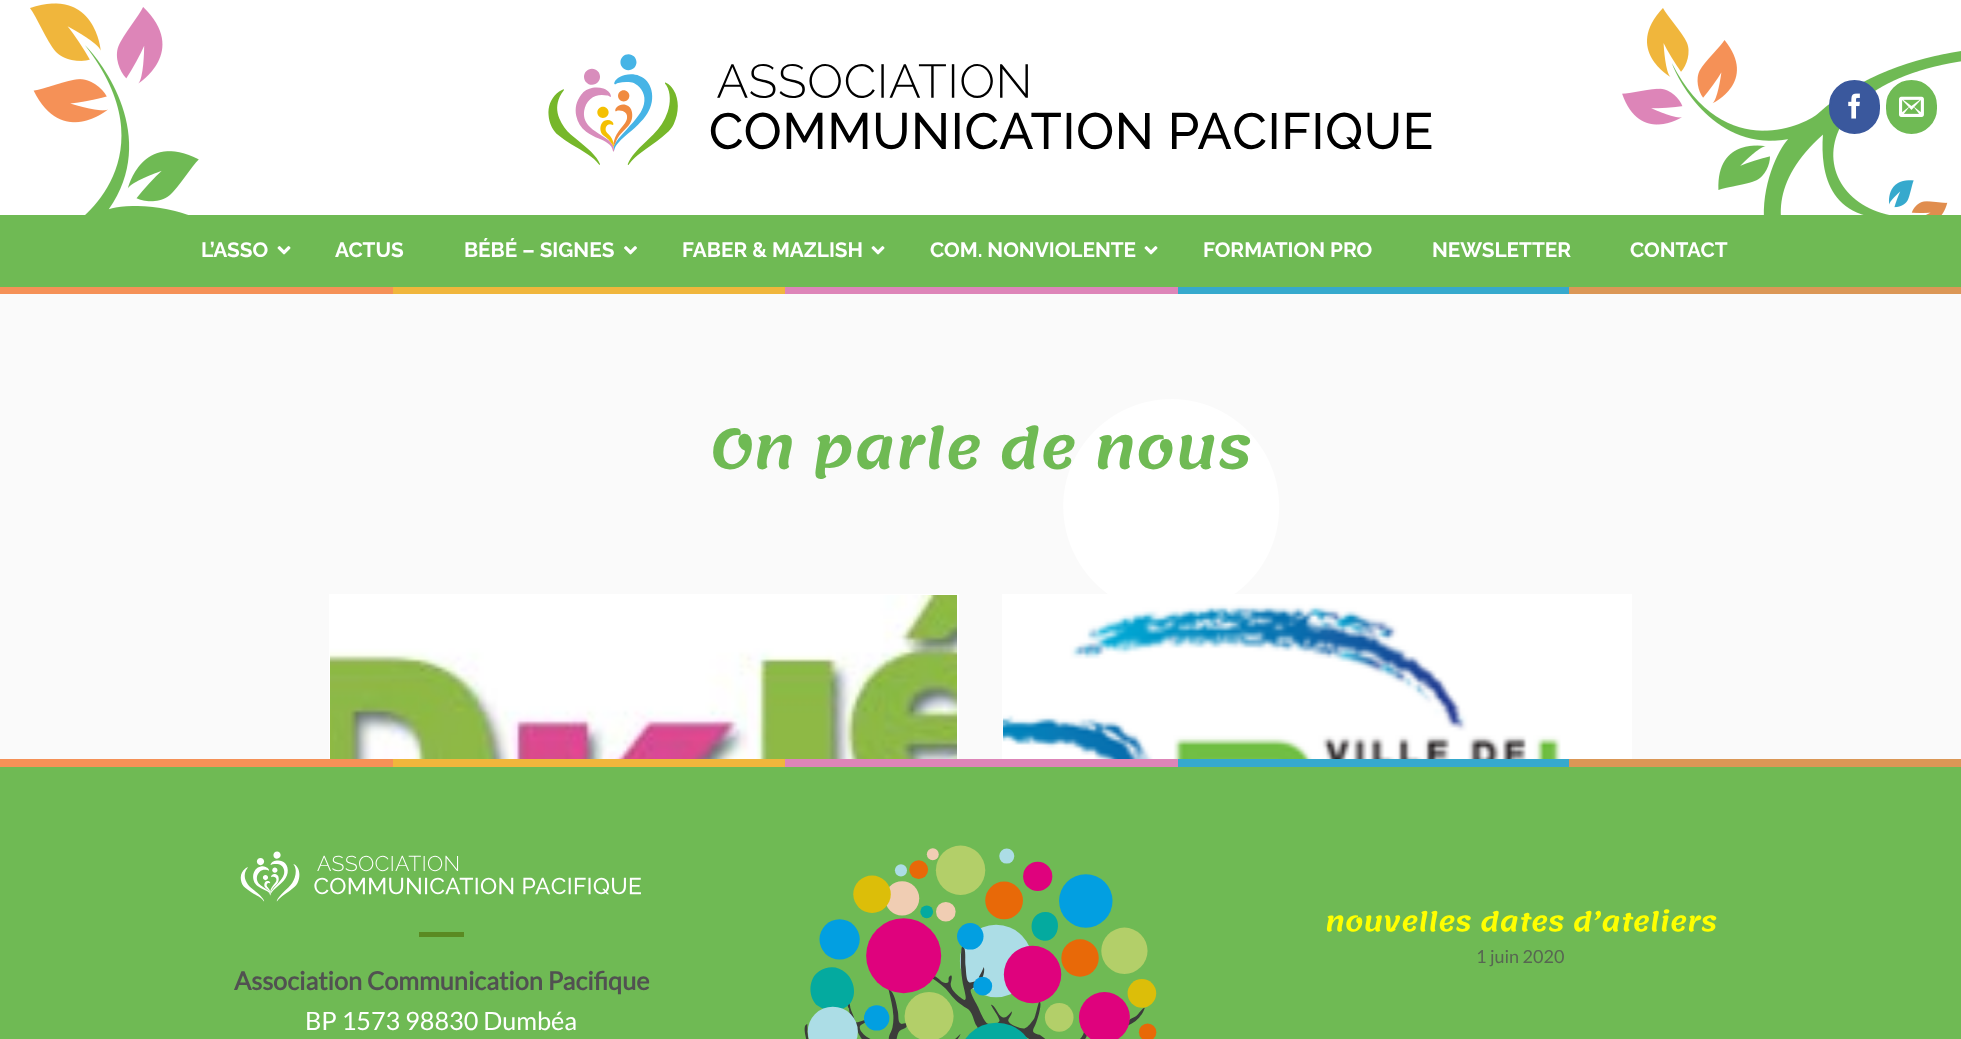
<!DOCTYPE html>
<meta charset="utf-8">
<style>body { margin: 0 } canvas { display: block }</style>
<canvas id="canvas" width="1961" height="1039"></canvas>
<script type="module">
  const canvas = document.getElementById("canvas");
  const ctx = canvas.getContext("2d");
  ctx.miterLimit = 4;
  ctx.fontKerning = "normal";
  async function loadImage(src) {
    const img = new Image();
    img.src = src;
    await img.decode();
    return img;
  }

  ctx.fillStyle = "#fafafa";
  ctx.fillRect(0, 0, 1961, 1039);
  ctx.fillStyle = "#ffffff";
  ctx.fillRect(0, 0, 1961, 215);
  ctx.drawImage(await loadImage("img1.png"), 30, 3, 1931, 212);
  ctx.drawImage(await loadImage("img2.png"), 548, 54, 884, 111);
  ctx.fillStyle = "#3a589d";
  ctx.beginPath();
  ctx.roundRect(1830, 81, 49, 52, 24.5);
  ctx.fill();
  ctx.strokeStyle = "#3a589d";
  ctx.lineWidth = 2;
  ctx.stroke();
  ctx.drawImage(await loadImage("img3.png"), 1848, 93, 12, 26);
  ctx.fillStyle = "#6fba54";
  ctx.beginPath();
  ctx.roundRect(1887, 81, 49, 52, 24.5);
  ctx.fill();
  ctx.strokeStyle = "#6fba54";
  ctx.stroke();
  ctx.drawImage(await loadImage("img4.png"), 1899, 96, 25, 21);
  ctx.fillRect(0, 215, 1961, 72);
  ctx.font = "bold 20.75px Raleway";
  ctx.fillStyle = "#ffffff";
  ctx.fillText("L’ASSO", 201, 257);
  ctx.drawImage(await loadImage("img5.png"), 277, 246, 14, 9);
  ctx.fillText("ACTUS", 335, 257);
  ctx.fillText("BÉBÉ – SIGNES", 464, 257);
  ctx.drawImage(await loadImage("img6.png"), 624, 246, 13, 9);
  ctx.fillText("FABER & MAZLISH", 682, 257);
  ctx.drawImage(await loadImage("img5.png"), 871, 246, 14, 9);
  ctx.fillText("COM. NONVIOLENTE", 930, 257);
  ctx.drawImage(await loadImage("img5.png"), 1144, 246, 14, 9);
  ctx.fillText("FORMATION PRO", 1203, 257);
  ctx.fillText("NEWSLETTER", 1432, 257);
  ctx.fillText("CONTACT", 1630, 257);
  ctx.fillStyle = "#f59157";
  ctx.fillRect(0, 287, 393, 7);
  ctx.fillStyle = "#f0b63c";
  ctx.fillRect(393, 287, 392, 7);
  ctx.fillStyle = "#dd85b8";
  ctx.fillRect(785, 287, 393, 7);
  ctx.fillStyle = "#36a9cd";
  ctx.fillRect(1178, 287, 391, 7);
  ctx.fillStyle = "#db9756";
  ctx.fillRect(1569, 287, 392, 7);
  ctx.drawImage(await loadImage("img7.png"), 581, 399, 855, 360);
  ctx.font = "600 55.25px Lemonada";
  ctx.fillStyle = "#6fba54";
  ctx.fillText("On parle de nous", 711, 468);
  ctx.strokeStyle = "#ffffff";
  ctx.strokeRect(330, 595, 628, 354);
  ctx.drawImage(await loadImage("img8.png"), 330, 595, 627, 164);
  ctx.strokeRect(1003, 595, 628, 354);
  ctx.drawImage(await loadImage("img9.png"), 1003, 596, 627, 163);
  ctx.fillStyle = "#f59157";
  ctx.fillRect(0, 759, 393, 8);
  ctx.fillStyle = "#f0b63c";
  ctx.fillRect(393, 759, 392, 8);
  ctx.fillStyle = "#dd85b8";
  ctx.fillRect(785, 759, 393, 8);
  ctx.fillStyle = "#36a9cd";
  ctx.fillRect(1178, 759, 391, 8);
  ctx.fillStyle = "#db9756";
  ctx.fillRect(1569, 759, 392, 8);
  ctx.fillStyle = "#6fba54";
  ctx.fillRect(0, 767, 1961, 272);
  ctx.drawImage(await loadImage("img10.png"), 804, 845, 353, 194);
  ctx.font = "600 26.1px Lemonada";
  ctx.fillStyle = "#ffff00";
  ctx.fillText("nouvelles dates d’ateliers", 1325, 931);
  ctx.font = "18px Lato";
  ctx.fillStyle = "#576652";
  ctx.fillText("1 juin 2020", 1476, 963);
  ctx.drawImage(await loadImage("img11.png"), 240, 851, 401, 51);
  ctx.fillStyle = "#5a8a22";
  ctx.fillRect(419, 932, 45, 5);
  ctx.font = "bold 25.25px Lato";
  ctx.fillStyle = "#515151";
  ctx.fillText("Association Communication Pacifique", 234, 990);
  ctx.font = "25.25px Lato";
  ctx.fillStyle = "#ffffff";
  ctx.fillText("BP 1573 98830 Dumbéa", 305, 1030);
</script>
